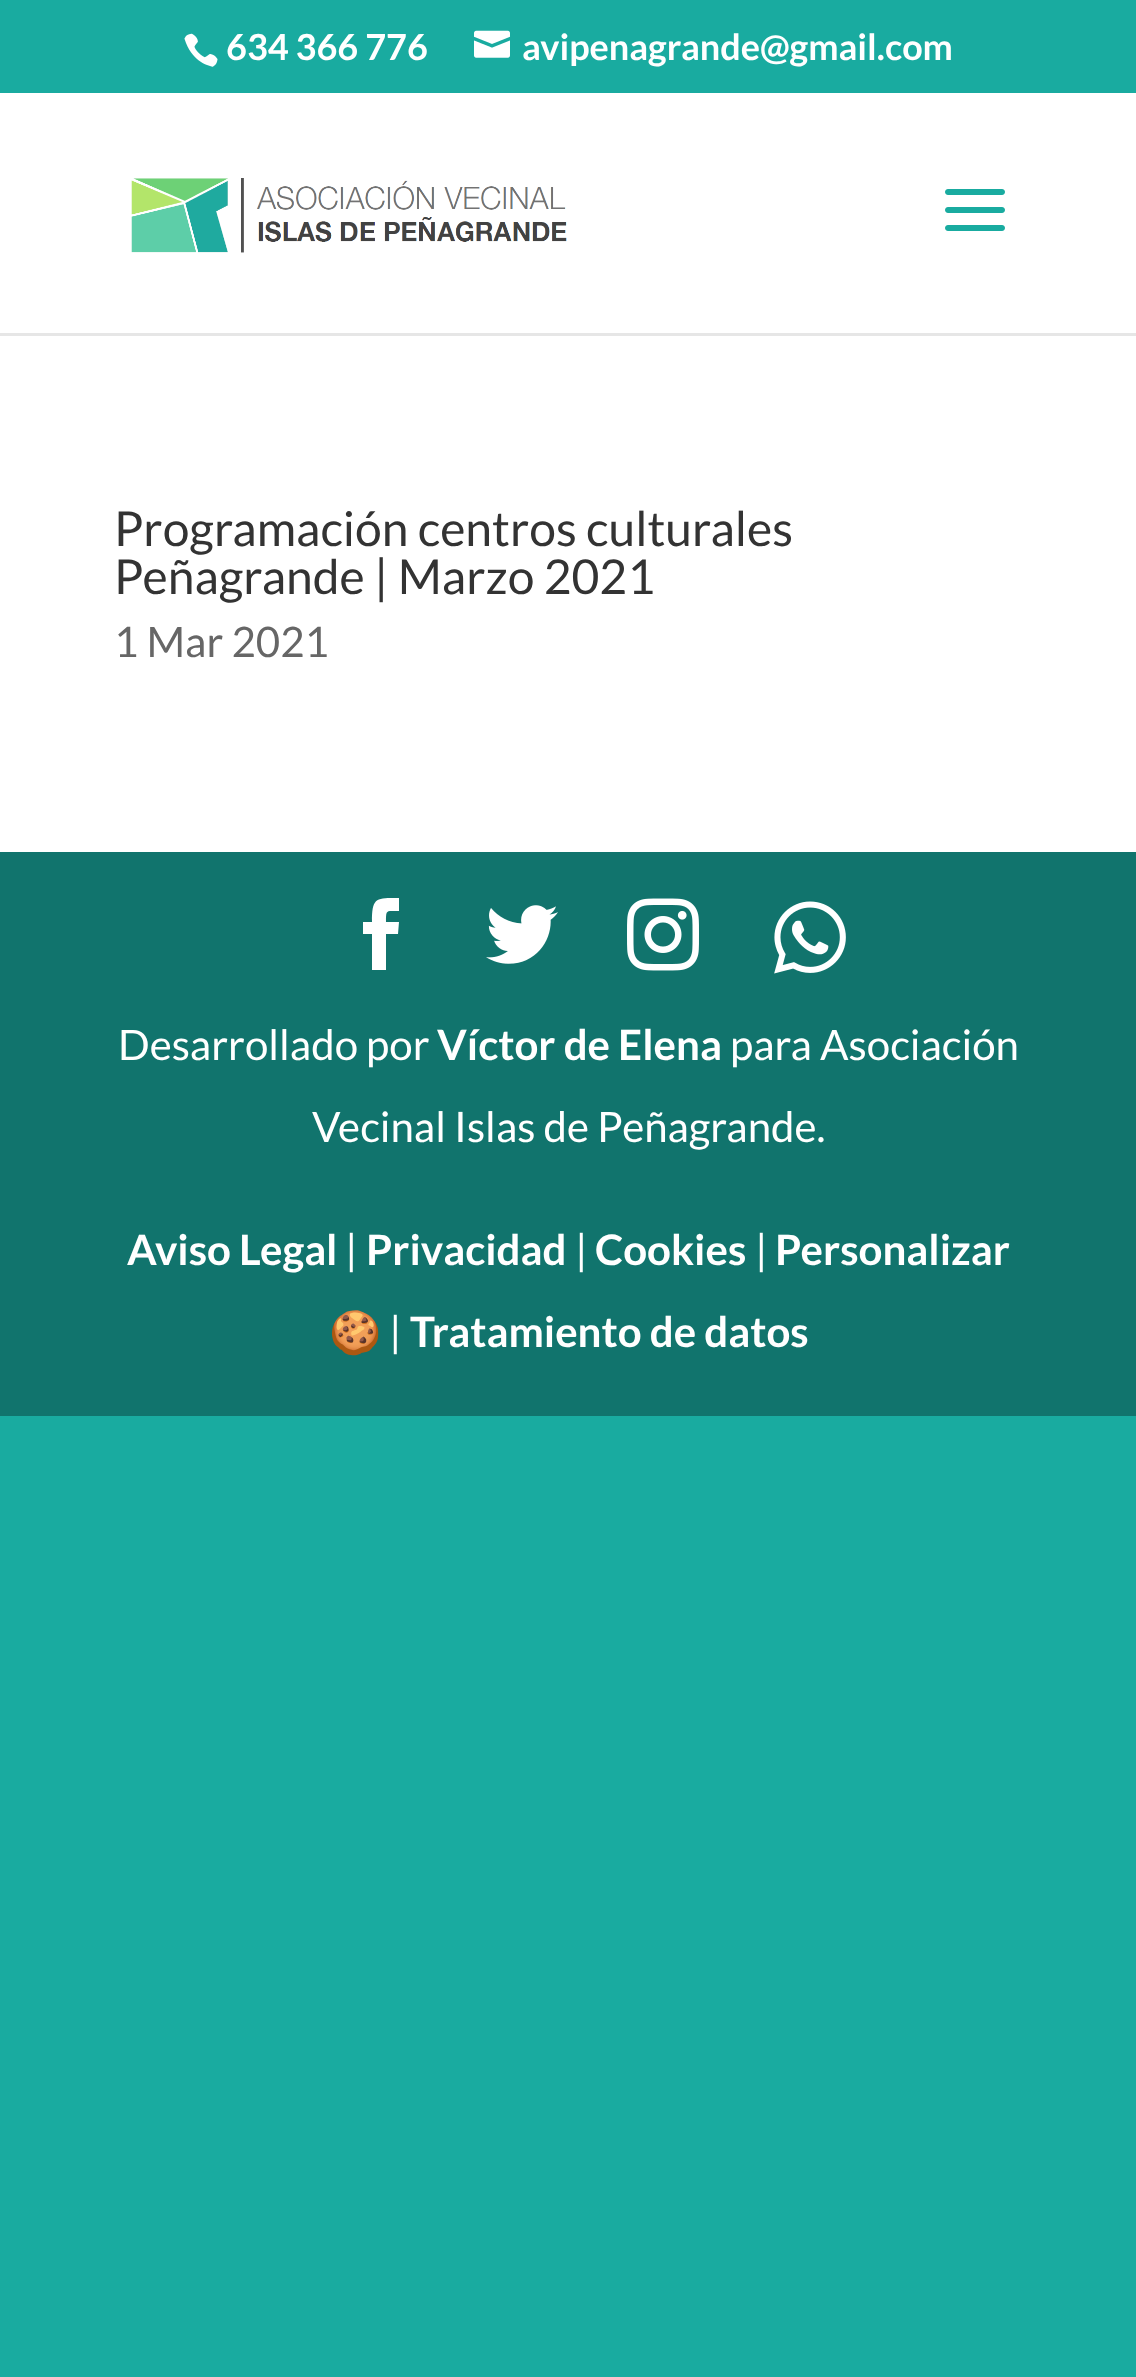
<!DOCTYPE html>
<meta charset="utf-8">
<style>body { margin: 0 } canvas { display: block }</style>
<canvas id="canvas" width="1136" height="2377"></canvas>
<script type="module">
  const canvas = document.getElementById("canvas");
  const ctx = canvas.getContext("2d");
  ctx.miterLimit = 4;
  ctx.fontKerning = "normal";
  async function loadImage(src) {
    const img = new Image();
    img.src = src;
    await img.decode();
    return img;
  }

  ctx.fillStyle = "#19aba0";
  ctx.fillRect(0, 0, 1136, 2377);
  ctx.drawImage(await loadImage("img1.png"), 184, 33, 34, 34);
  ctx.font = "bold 36px Lato";
  ctx.fillStyle = "#ffffff";
  ctx.fillText("634 366 776", 226, 60);
  ctx.drawImage(await loadImage("img2.png"), 474, 30, 36, 28);
  ctx.fillText("avipenagrande@gmail.com", 522, 60);
  ctx.fillStyle = "#e6e6e6";
  ctx.fillRect(0, 333, 1136, 3);
  ctx.fillStyle = "#ffffff";
  ctx.fillRect(0, 93, 1136, 240);
  ctx.drawImage(await loadImage("img3.png"), 131, 178, 436, 75);
  ctx.drawImage(await loadImage("img4.png"), 945, 189, 60, 42);
  ctx.fillRect(0, 336, 1136, 516);
  ctx.font = "48px Lato";
  ctx.fillStyle = "#333333";
  ctx.fillText("Programación centros culturales", 114, 546);
  ctx.fillText("Peñagrande | Marzo 2021", 114, 594);
  ctx.font = "42px Lato";
  ctx.fillStyle = "#666666";
  ctx.fillText("1 Mar 2021", 114, 657);
  ctx.fillStyle = "#11746d";
  ctx.fillRect(0, 852, 1136, 564);
  ctx.fillStyle = "#ffffff";
  ctx.beginPath();
  ctx.moveTo(372, 970);
  ctx.lineTo(386, 970);
  ctx.lineTo(386, 934);
  ctx.lineTo(398, 934);
  ctx.lineTo(399, 922);
  ctx.lineTo(386, 922);
  ctx.bezierCurveTo(386, 909, 386, 911, 399, 911);
  ctx.lineTo(399, 898);
  ctx.bezierCurveTo(376, 898, 372, 897, 372, 922);
  ctx.lineTo(363, 922);
  ctx.lineTo(363, 934);
  ctx.lineTo(372, 934);
  ctx.closePath();
  ctx.fill();
  ctx.drawImage(await loadImage("img5.png"), 486, 905, 72, 59);
  ctx.drawImage(await loadImage("img6.png"), 627, 898, 72, 73);
  ctx.drawImage(await loadImage("img7.png"), 774, 901, 72, 73);
  ctx.fillText("Desarrollado por", 118, 1060);
  ctx.font = "bold 42px Lato";
  ctx.fillText("Víctor de Elena", 437, 1060);
  ctx.font = "42px Lato";
  ctx.fillText("para Asociación", 730, 1060);
  ctx.fillText("Vecinal Islas de Peñagrande.", 312, 1142);
  ctx.font = "bold 42px Lato";
  ctx.fillText("Aviso Legal", 127, 1265);
  ctx.font = "42px Lato";
  ctx.fillText("|", 345, 1265);
  ctx.font = "bold 42px Lato";
  ctx.fillText("Privacidad", 366, 1265);
  ctx.font = "42px Lato";
  ctx.fillText("|", 575, 1265);
  ctx.font = "bold 42px Lato";
  ctx.fillText("Cookies", 595, 1265);
  ctx.font = "42px Lato";
  ctx.fillText("|", 755, 1265);
  ctx.font = "bold 42px Lato";
  ctx.fillText("Personalizar", 775, 1265);
  ctx.font = "bold 42px Noto Color Emoji";
  ctx.fillText("🍪", 329, 1347);
  ctx.font = "42px Lato";
  ctx.fillText("|", 389, 1347);
  ctx.font = "bold 42px Lato";
  ctx.fillText("Tratamiento de datos", 410, 1347);
</script>
